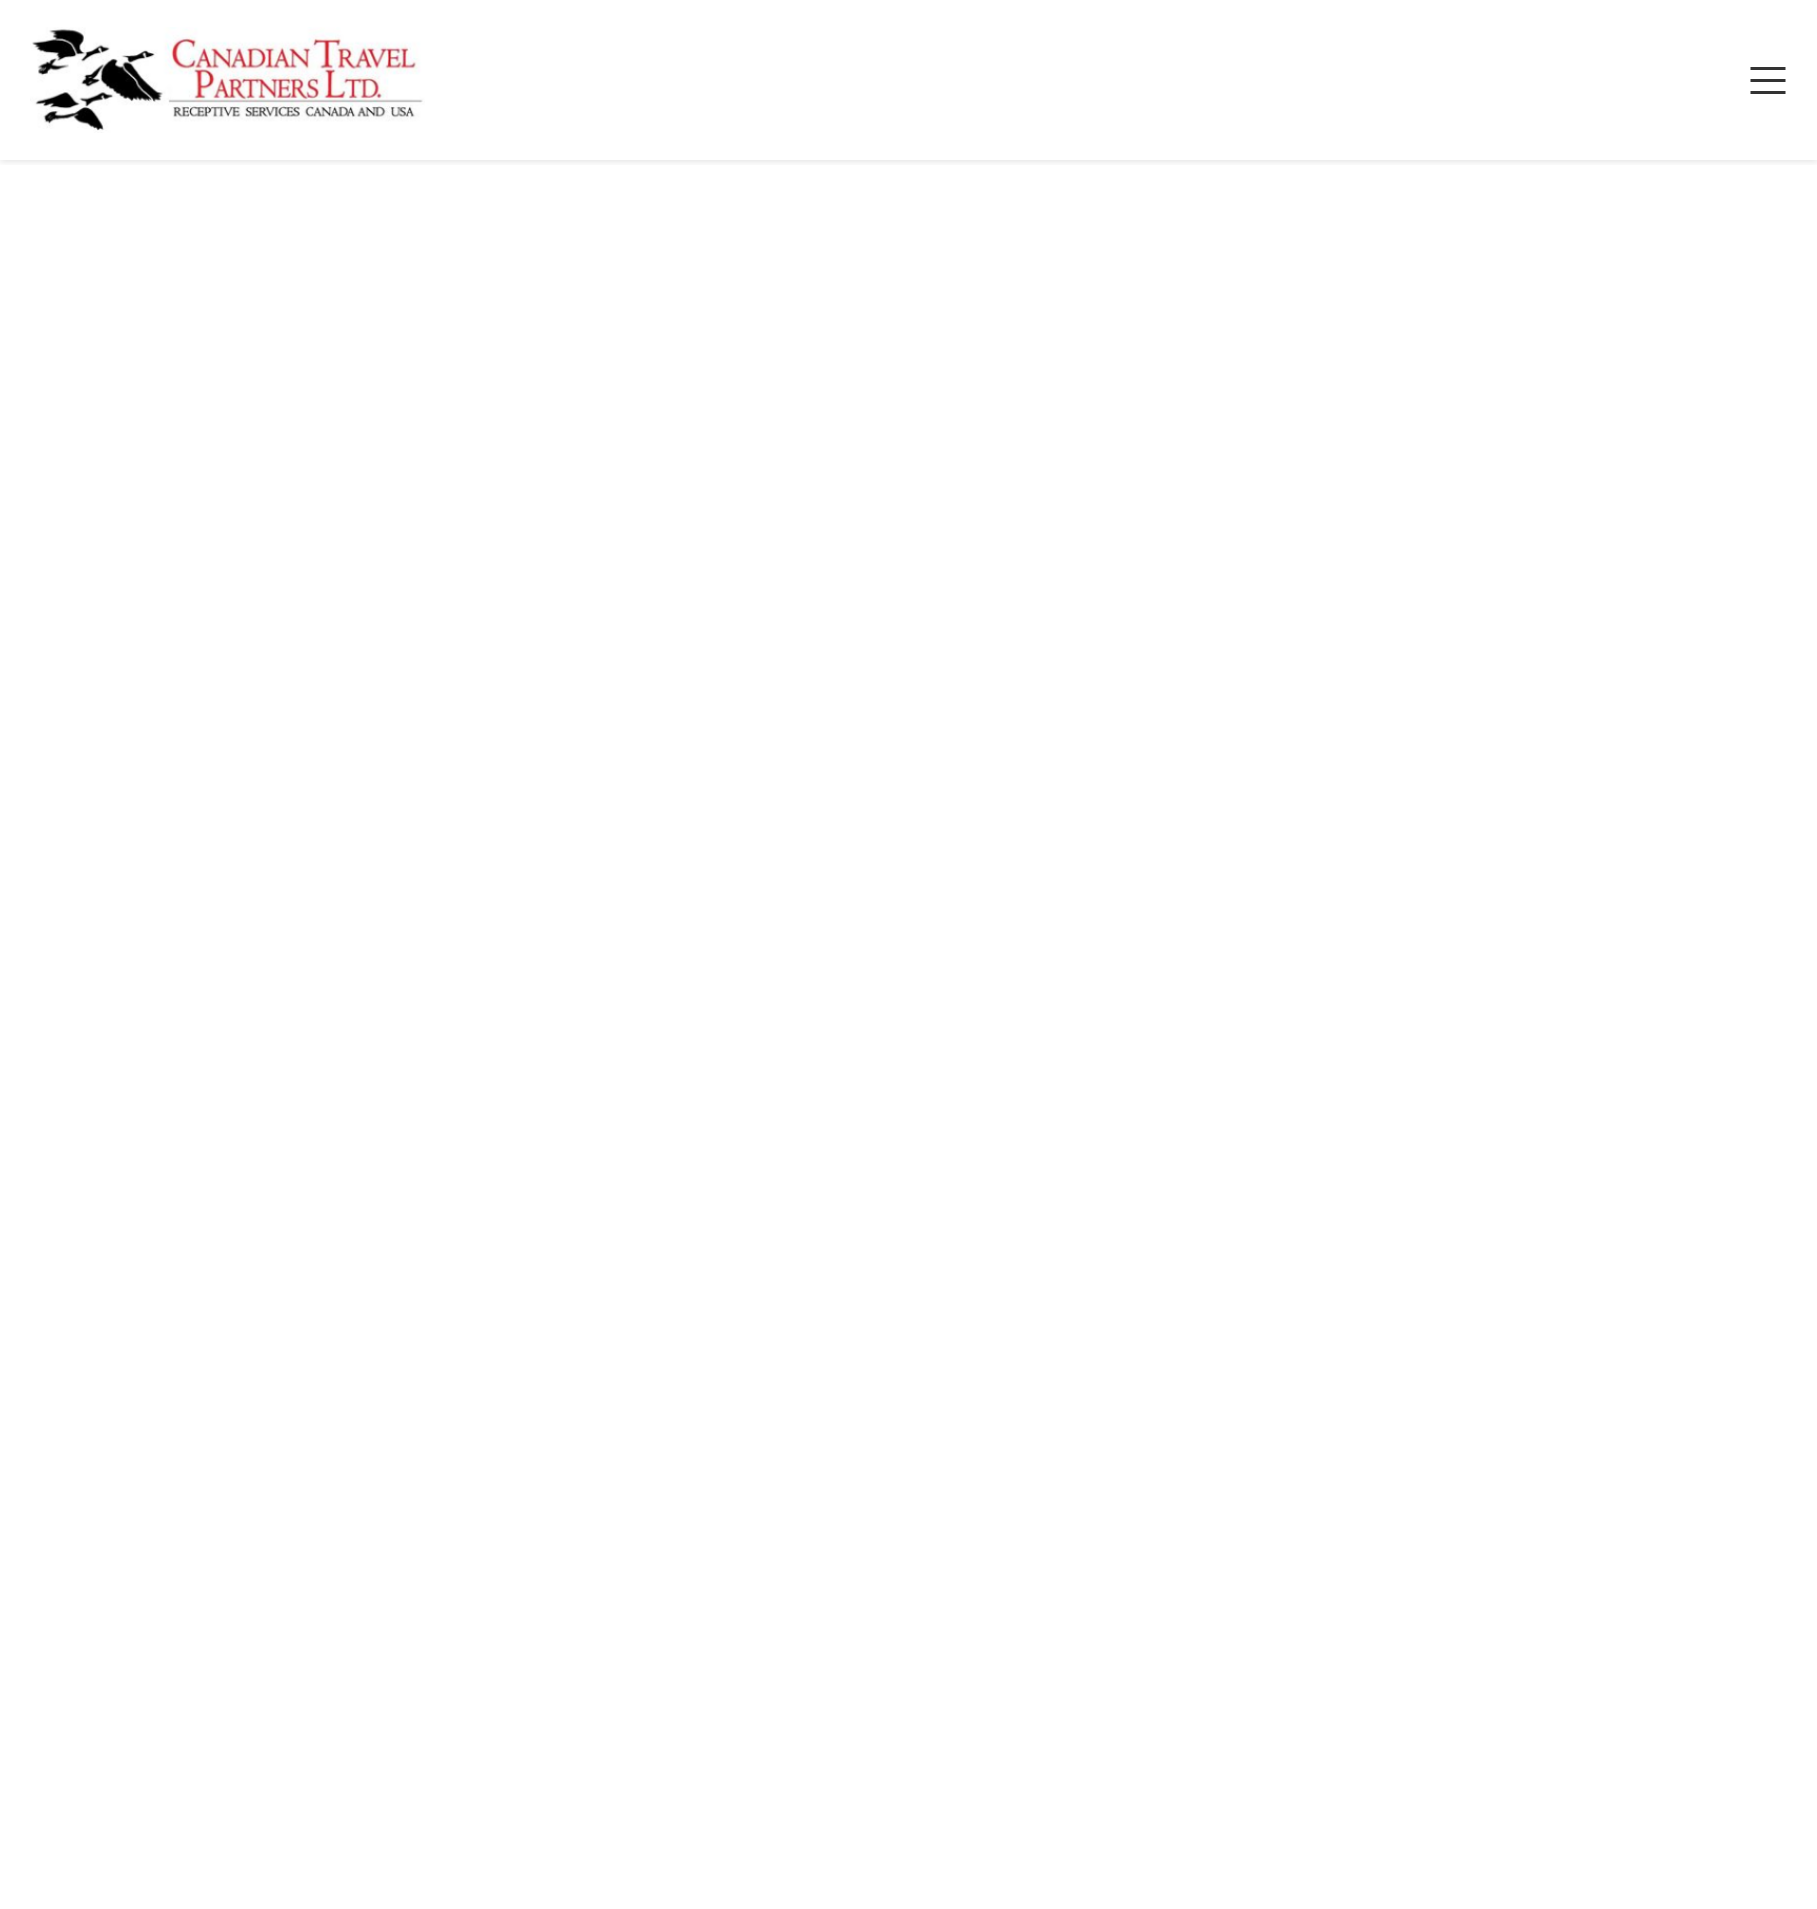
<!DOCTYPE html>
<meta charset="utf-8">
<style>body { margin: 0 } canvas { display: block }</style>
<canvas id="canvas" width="1817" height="1909"></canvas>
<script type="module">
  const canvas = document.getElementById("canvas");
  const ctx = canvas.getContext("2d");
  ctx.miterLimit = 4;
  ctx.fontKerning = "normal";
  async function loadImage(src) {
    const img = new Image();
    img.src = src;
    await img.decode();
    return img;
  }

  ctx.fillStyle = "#ffffff";
  ctx.fillRect(0, 0, 1817, 1909);
  ctx.save();
  ctx.beginPath();
  ctx.rect(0, 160, 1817, 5);
  ctx.clip();
  ctx.fillStyle = "rgba(0, 0, 0, 0.1)";
  ctx.filter = "blur(3px)";
  ctx.beginPath();
  ctx.rect(0, 2, 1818, 160);
  ctx.fill();
  ctx.filter = "none";
  ctx.restore();
  ctx.drawImage(await loadImage("img1.png"), 30, 27, 395, 106);
  ctx.fillStyle = "#333333";
  ctx.beginPath();
  ctx.moveTo(1750.5, 70);
  ctx.lineTo(1785.5, 70);
  ctx.lineTo(1785.5, 67);
  ctx.lineTo(1750.5, 67);
  ctx.closePath();
  ctx.moveTo(1750.5, 82);
  ctx.lineTo(1785.5, 82);
  ctx.lineTo(1785.5, 79);
  ctx.lineTo(1750.5, 79);
  ctx.closePath();
  ctx.moveTo(1750.5, 94);
  ctx.lineTo(1785.5, 94);
  ctx.lineTo(1785.5, 91);
  ctx.lineTo(1750.5, 91);
  ctx.closePath();
  ctx.fill();
</script>
